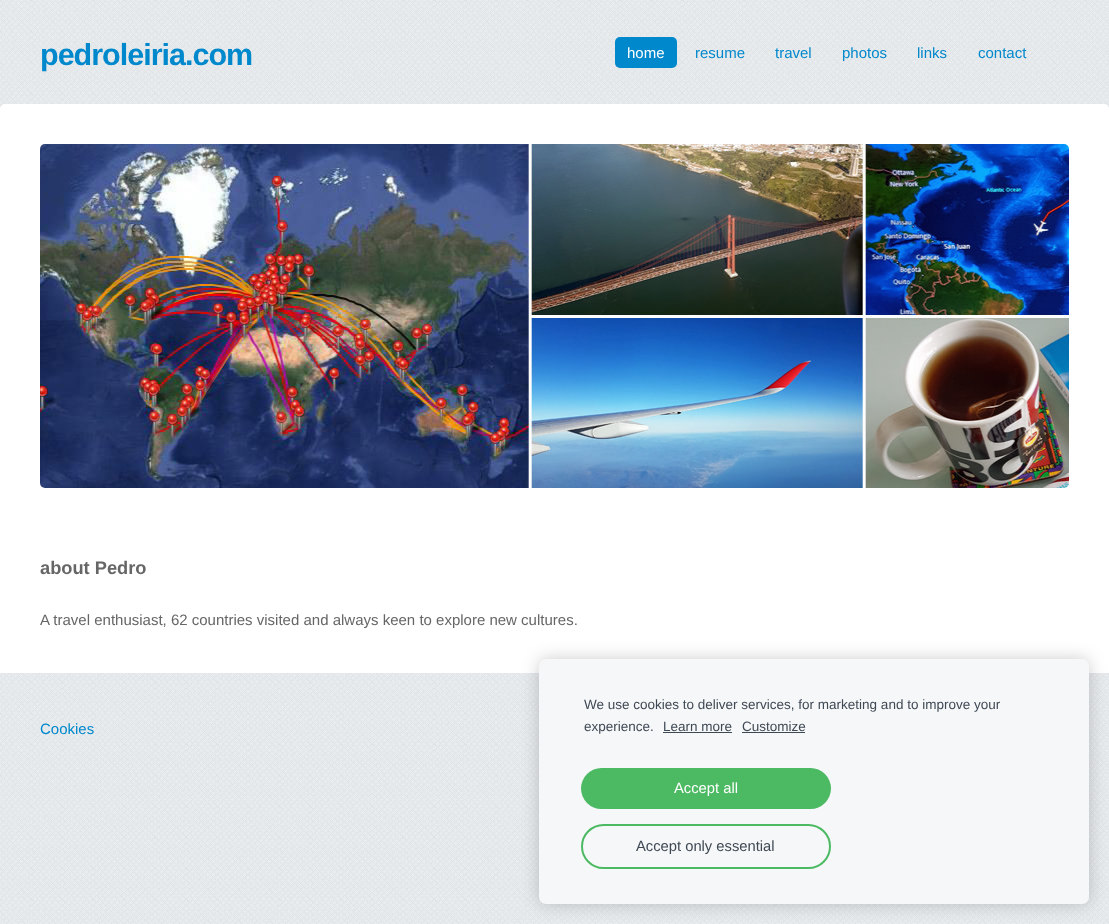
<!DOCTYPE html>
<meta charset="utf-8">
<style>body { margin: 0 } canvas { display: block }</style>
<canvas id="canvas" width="1109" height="924"></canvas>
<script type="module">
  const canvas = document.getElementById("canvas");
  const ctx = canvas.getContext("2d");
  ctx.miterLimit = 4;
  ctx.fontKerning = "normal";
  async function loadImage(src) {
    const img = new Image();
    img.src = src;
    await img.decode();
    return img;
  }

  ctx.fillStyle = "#ffffff";
  ctx.fillRect(0, 0, 1109, 924);
  ctx.drawImage(await loadImage("img1.png"), 0, 0, 1109, 924);
  ctx.letterSpacing = "-1px";
  ctx.font = "bold 30.5px Liberation Sans";
  ctx.fillStyle = "#0088cc";
  ctx.fillText("pedroleiria.com", 40, 65);
  ctx.beginPath();
  ctx.roundRect(615, 37, 62, 31, 5);
  ctx.fill();
  ctx.letterSpacing = "0px";
  ctx.font = "15px Liberation Sans";
  ctx.fillStyle = "#ffffff";
  ctx.fillText("home", 627, 58);
  ctx.fillStyle = "#0088cc";
  ctx.fillText("resume", 695, 58);
  ctx.fillText("travel", 775, 58);
  ctx.fillText("photos", 842, 58);
  ctx.fillText("links", 917, 58);
  ctx.fillText("contact", 978, 58);
  ctx.fillStyle = "#ffffff";
  ctx.beginPath();
  ctx.roundRect(0, 104, 1109, 569, 5);
  ctx.fill();
  ctx.drawImage(await loadImage("img2.png"), 40, 144, 1029, 344);
  ctx.fillRect(0, 669, 1109, 4);
  ctx.font = "bold 18.25px Liberation Sans";
  ctx.fillStyle = "#666666";
  ctx.fillText("about Pedro", 40, 574);
  ctx.font = "15px Liberation Sans";
  ctx.fillText("A travel enthusiast, 62 countries visited and always keen to explore new cultures.", 40, 625);
  ctx.fillStyle = "#0088cc";
  ctx.fillText("Cookies", 40, 734);
  ctx.fillStyle = "rgba(0, 0, 0, 0.2)";
  ctx.filter = "blur(8.5px)";
  ctx.beginPath();
  ctx.roundRect(539, 659, 550, 245, 7);
  ctx.fill();
  ctx.filter = "none";
  ctx.fillStyle = "#f6f7f9";
  ctx.beginPath();
  ctx.roundRect(539, 659, 550, 245, 7);
  ctx.fill();
  ctx.font = "13.5px Liberation Sans";
  ctx.fillStyle = "#3f4954";
  ctx.fillText("We use cookies to deliver services, for marketing and to improve your", 584, 709);
  ctx.fillText("experience.", 584, 731);
  ctx.fillText("Learn more", 663, 731);
  ctx.fillRect(663, 732, 69, 1);
  ctx.fillText("Customize", 742, 731);
  ctx.fillRect(742, 732, 63, 1);
  ctx.fillStyle = "#4cb963";
  ctx.beginPath();
  ctx.roundRect(581, 768, 250, 41, 20.5);
  ctx.fill();
  ctx.font = "14.75px Liberation Sans";
  ctx.fillStyle = "#ffffff";
  ctx.fillText("Accept all", 674, 793);
  ctx.beginPath();
  ctx.roundRect(582, 825, 248, 43, 21.5);
  ctx.strokeStyle = "#4cb963";
  ctx.lineWidth = 2;
  ctx.stroke();
  ctx.fillStyle = "#3f4954";
  ctx.fillText("Accept only essential", 636, 851);
</script>
